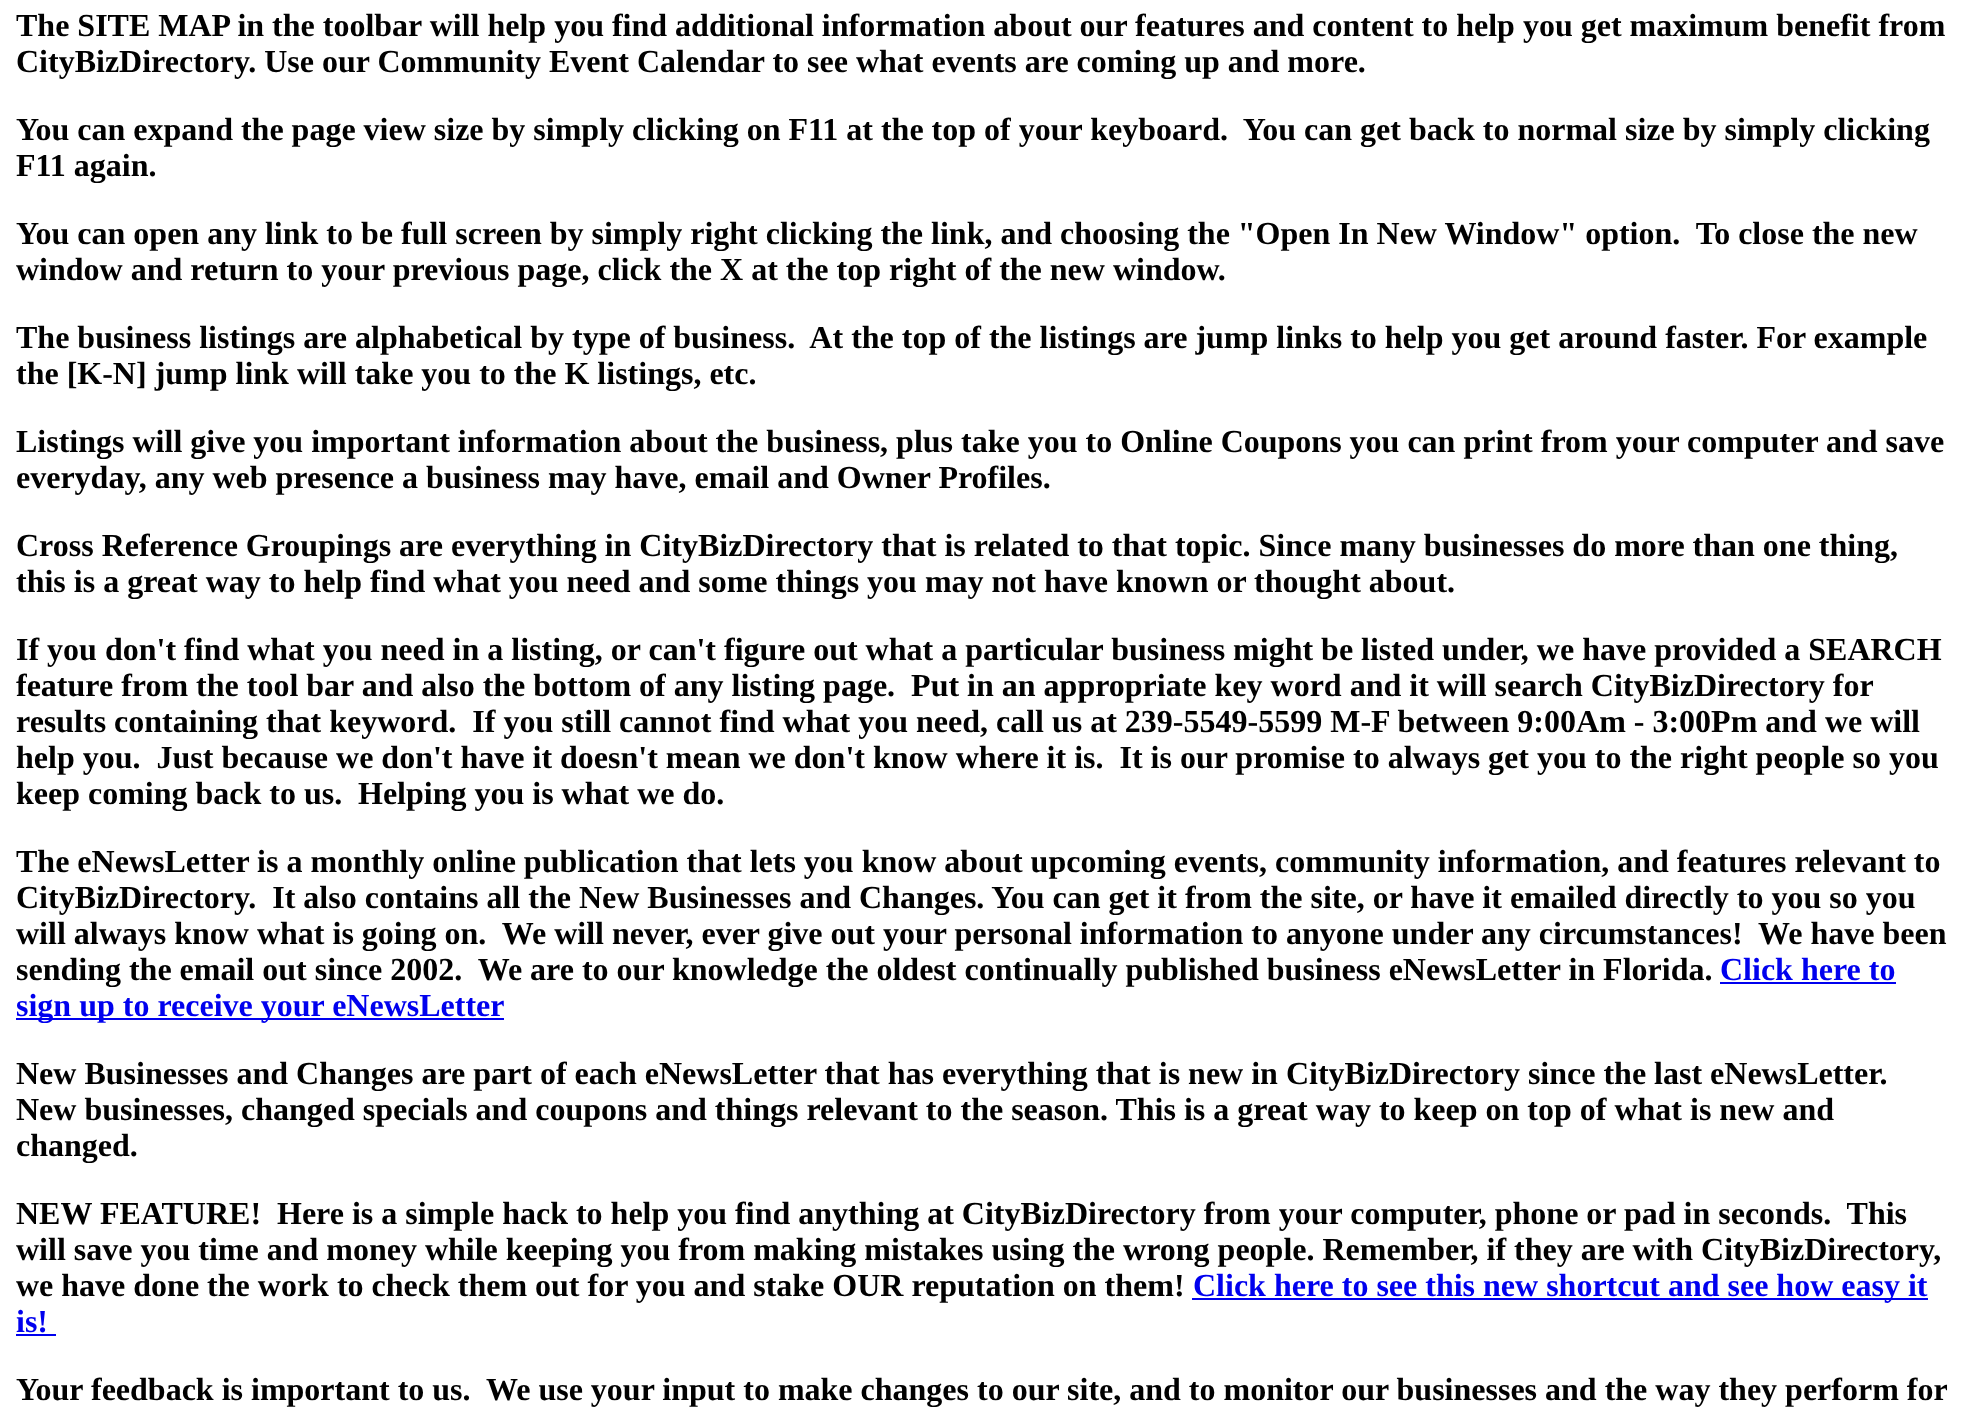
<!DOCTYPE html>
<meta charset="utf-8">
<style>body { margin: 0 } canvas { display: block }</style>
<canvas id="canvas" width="1965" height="1416"></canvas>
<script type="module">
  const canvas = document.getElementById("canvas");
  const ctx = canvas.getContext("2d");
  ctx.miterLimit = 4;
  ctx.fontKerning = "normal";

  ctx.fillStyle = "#ffffff";
  ctx.fillRect(0, 0, 1965, 1416);
  ctx.font = "bold 32px Liberation Serif";
  ctx.fillStyle = "#000000";
  ctx.fillText("The SITE MAP in the toolbar will help you find additional information about our features and content to help you get maximum benefit from", 16, 36);
  ctx.fillText("CityBizDirectory. Use our Community Event Calendar to see what events are coming up and more.", 16, 72);
  ctx.fillText("You can expand the page view size by simply clicking on F11 at the top of your keyboard.  You can get back to normal size by simply clicking", 16, 140);
  ctx.fillText("F11 again.", 16, 176);
  ctx.fillText("You can open any link to be full screen by simply right clicking the link, and choosing the \"Open In New Window\" option.  To close the new", 16, 244);
  ctx.fillText("window and return to your previous page, click the X at the top right of the new window.", 16, 280);
  ctx.fillText("The business listings are alphabetical by type of business.  At the top of the listings are jump links to help you get around faster. For example", 16, 348);
  ctx.fillText("the [K-N] jump link will take you to the K listings, etc.", 16, 384);
  ctx.fillText("Listings will give you important information about the business, plus take you to Online Coupons you can print from your computer and save", 16, 452);
  ctx.fillText("everyday, any web presence a business may have, email and Owner Profiles.", 16, 488);
  ctx.fillText("Cross Reference Groupings are everything in CityBizDirectory that is related to that topic. Since many businesses do more than one thing,", 16, 556);
  ctx.fillText("this is a great way to help find what you need and some things you may not have known or thought about.", 16, 592);
  ctx.fillText("If you don't find what you need in a listing, or can't figure out what a particular business might be listed under, we have provided a SEARCH", 16, 660);
  ctx.fillText("feature from the tool bar and also the bottom of any listing page.  Put in an appropriate key word and it will search CityBizDirectory for", 16, 696);
  ctx.fillText("results containing that keyword.  If you still cannot find what you need, call us at 239-5549-5599 M-F between 9:00Am - 3:00Pm and we will", 16, 732);
  ctx.fillText("help you.  Just because we don't have it doesn't mean we don't know where it is.  It is our promise to always get you to the right people so you", 16, 768);
  ctx.fillText("keep coming back to us.", 16, 804);
  ctx.fillText("Helping you is what we do.", 358, 804);
  ctx.fillText("The eNewsLetter is a monthly online publication that lets you know about upcoming events, community information, and features relevant to", 16, 872);
  ctx.fillText("CityBizDirectory.  It also contains all the New Businesses and Changes. You can get it from the site, or have it emailed directly to you so you", 16, 908);
  ctx.fillText("will always know what is going on.  We will never, ever give out your personal information to anyone under any circumstances!  We have been", 16, 944);
  ctx.fillText("sending the email out since 2002.  We are to our knowledge the oldest continually published business eNewsLetter in Florida.", 16, 980);
  ctx.fillStyle = "#0000ee";
  ctx.fillText("Click here to", 1720, 980);
  ctx.fillRect(1720, 982, 176, 2);
  ctx.fillRect(16, 1018, 488, 2);
  ctx.fillText("sign up to receive your eNewsLetter", 16, 1016);
  ctx.fillStyle = "#000000";
  ctx.fillText("New Businesses and Changes are part of each eNewsLetter that has everything that is new in CityBizDirectory since the last eNewsLetter.", 16, 1084);
  ctx.fillText("New businesses, changed specials and coupons and things relevant to the season. This is a great way to keep on top of what is new and", 16, 1120);
  ctx.fillText("changed.", 16, 1156);
  ctx.fillText("NEW FEATURE!", 16, 1224);
  ctx.fillText("Here is a simple hack to help you find anything at CityBizDirectory from your computer, phone or pad in seconds.  This", 277, 1224);
  ctx.fillText("will save you time and money while keeping you from making mistakes using the wrong people. Remember, if they are with CityBizDirectory,", 16, 1260);
  ctx.fillText("we have done the work to check them out for you and stake OUR reputation on them!", 16, 1296);
  ctx.fillStyle = "#0000ee";
  ctx.fillRect(1192, 1298, 736, 2);
  ctx.fillText("Click here to see this new shortcut and see how easy it", 1193, 1296);
  ctx.fillText("is!", 16, 1332);
  ctx.fillRect(16, 1334, 40, 2);
  ctx.fillStyle = "#000000";
  ctx.fillText("Your feedback is important to us.  We use your input to make changes to our site, and to monitor our businesses and the way they perform for", 16, 1400);
</script>
